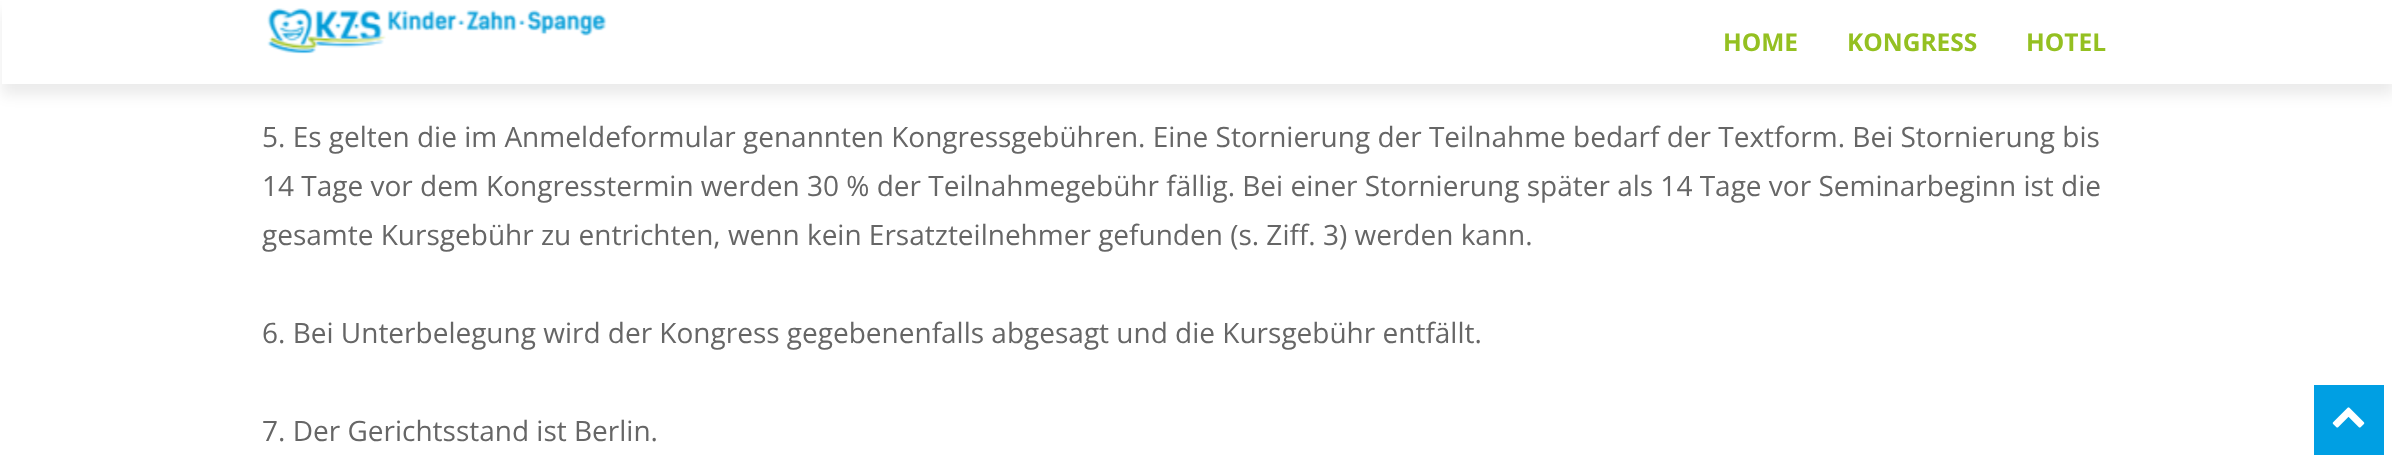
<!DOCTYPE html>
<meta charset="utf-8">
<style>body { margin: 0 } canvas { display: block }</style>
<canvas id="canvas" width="2392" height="461"></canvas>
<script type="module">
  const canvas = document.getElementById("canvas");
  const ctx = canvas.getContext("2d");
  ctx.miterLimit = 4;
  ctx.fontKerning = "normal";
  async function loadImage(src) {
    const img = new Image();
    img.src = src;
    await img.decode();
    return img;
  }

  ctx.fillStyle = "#ffffff";
  ctx.fillRect(0, 0, 2392, 461);
  ctx.drawImage(await loadImage("img1.png"), 267, 8, 340, 46);
  ctx.save();
  ctx.beginPath();
  ctx.moveTo(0, 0);
  ctx.lineTo(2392, 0);
  ctx.lineTo(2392, 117);
  ctx.lineTo(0, 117);
  ctx.closePath();
  ctx.moveTo(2, 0);
  ctx.lineTo(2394, 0);
  ctx.lineTo(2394, 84);
  ctx.lineTo(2, 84);
  ctx.closePath();
  ctx.clip("evenodd");
  ctx.fillStyle = "rgba(0, 0, 0, 0.08)";
  ctx.filter = "blur(7px)";
  ctx.beginPath();
  ctx.rect(2, 11, 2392, 84);
  ctx.fill();
  ctx.filter = "none";
  ctx.restore();
  ctx.font = "bold 24.5px Open Sans";
  ctx.fillStyle = "#94c021";
  ctx.fillText("HOME", 1723, 51);
  ctx.fillText("KONGRESS", 1847, 51);
  ctx.fillText("HOTEL", 2026, 51);
  ctx.font = "28px Open Sans";
  ctx.fillStyle = "#666666";
  ctx.fillText("5. Es gelten die im Anmeldeformular genannten Kongressgebühren. Eine Stornierung der Teilnahme bedarf der Textform. Bei Stornierung bis", 262, 147);
  ctx.fillText("14 Tage vor dem Kongresstermin werden 30 % der Teilnahmegebühr fällig. Bei einer Stornierung später als 14 Tage vor Seminarbeginn ist die", 262, 196);
  ctx.fillText("gesamte Kursgebühr zu entrichten, wenn kein Ersatzteilnehmer gefunden (s. Ziff. 3) werden kann.", 262, 245);
  ctx.fillText("6. Bei Unterbelegung wird der Kongress gegebenenfalls abgesagt und die Kursgebühr entfällt.", 262, 343);
  ctx.fillText("7. Der Gerichtsstand ist Berlin.", 262, 441);
  ctx.fillStyle = "#009fe3";
  ctx.fillRect(2314, 385, 70, 70);
  ctx.drawImage(await loadImage("img2.png"), 2332, 407, 33, 21);
</script>
